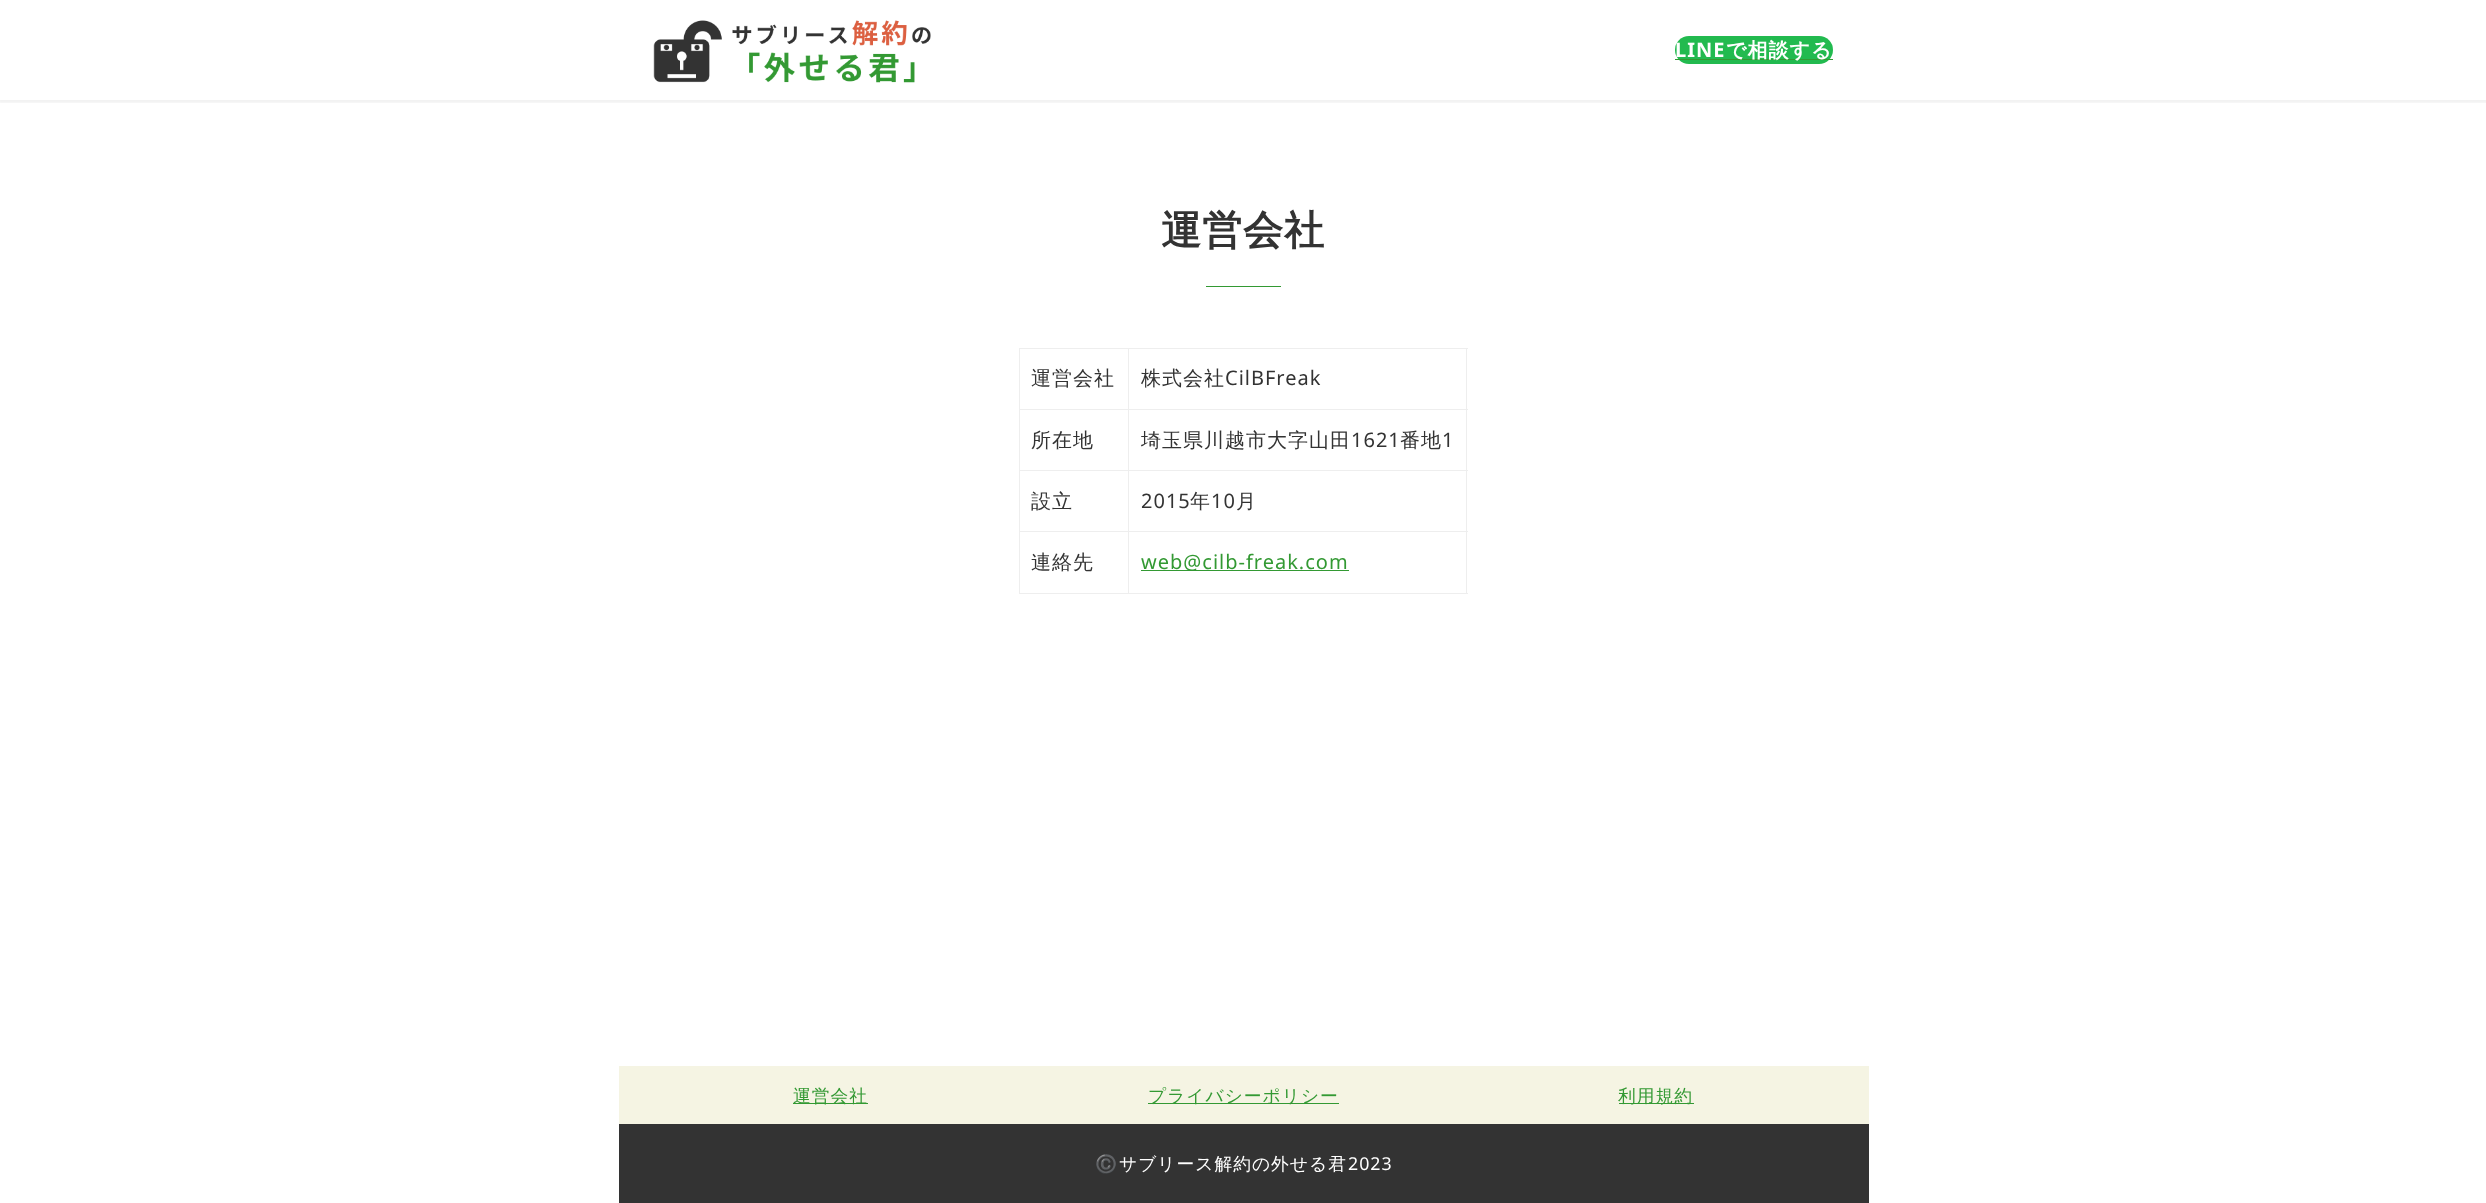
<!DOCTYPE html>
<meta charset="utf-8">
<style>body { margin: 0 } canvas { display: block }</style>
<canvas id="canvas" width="2486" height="1203"></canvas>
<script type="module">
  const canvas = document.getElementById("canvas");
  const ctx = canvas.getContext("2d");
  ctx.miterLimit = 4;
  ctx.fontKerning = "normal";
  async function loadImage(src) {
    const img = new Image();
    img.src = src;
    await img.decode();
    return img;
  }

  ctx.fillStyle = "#ffffff";
  ctx.fillRect(0, 0, 2486, 1203);
  ctx.save();
  ctx.beginPath();
  ctx.rect(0, 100, 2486, 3);
  ctx.clip();
  ctx.fillStyle = "rgba(0, 0, 0, 0.05)";
  ctx.filter = "blur(1px)";
  ctx.beginPath();
  ctx.rect(-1, 0, 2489, 103);
  ctx.fill();
  ctx.filter = "none";
  ctx.restore();
  ctx.drawImage(await loadImage("img1.png"), 653, 20, 278, 63);
  ctx.fillStyle = "#22ba4f";
  ctx.beginPath();
  ctx.roundRect(1675, 36, 158, 28, 14);
  ctx.fill();
  ctx.letterSpacing = "1px";
  ctx.font = "bold 20px Noto Sans";
  ctx.fillStyle = "#ffffff";
  ctx.fillText("LINE", 1675, 57);
  ctx.fillStyle = "#339933";
  ctx.fillRect(1675, 59, 158, 1);
  ctx.font = "bold 20px WenQuanYi Zen Hei";
  ctx.fillStyle = "#ffffff";
  ctx.fillText("で相談する", 1726, 57);
  ctx.font = "bold 40px WenQuanYi Zen Hei";
  ctx.fillStyle = "#333333";
  ctx.fillText("運営会社", 1161, 244);
  ctx.fillStyle = "#339933";
  ctx.fillRect(1206, 286, 75, 1);
  ctx.fillStyle = "#eeeeee";
  ctx.fillRect(1128, 348, 340, 1);
  ctx.fillRect(1128, 409, 340, 1);
  ctx.fillRect(1128, 470, 340, 1);
  ctx.fillRect(1128, 531, 340, 1);
  ctx.fillRect(1466, 531, 1, 63);
  ctx.fillRect(1128, 593, 340, 1);
  ctx.fillRect(1128, 531, 1, 63);
  ctx.fillRect(1019, 531, 110, 1);
  ctx.fillRect(1128, 470, 1, 63);
  ctx.fillRect(1019, 470, 110, 1);
  ctx.fillRect(1128, 409, 1, 62);
  ctx.fillRect(1019, 409, 110, 1);
  ctx.fillRect(1128, 348, 1, 62);
  ctx.fillRect(1019, 348, 110, 1);
  ctx.fillRect(1019, 593, 110, 1);
  ctx.fillRect(1019, 531, 1, 63);
  ctx.fillRect(1019, 470, 1, 63);
  ctx.fillRect(1019, 409, 1, 62);
  ctx.fillRect(1019, 348, 1, 62);
  ctx.font = "500 20px WenQuanYi Zen Hei";
  ctx.fillStyle = "#333333";
  ctx.fillText("運営会社", 1031, 385);
  ctx.fillStyle = "#eeeeee";
  ctx.fillRect(1466, 470, 1, 63);
  ctx.fillRect(1466, 409, 1, 62);
  ctx.fillRect(1466, 348, 1, 62);
  ctx.fillStyle = "#333333";
  ctx.fillText("株式会社", 1141, 385);
  ctx.font = "20px Noto Sans";
  ctx.fillText("CilBFreak", 1225, 385);
  ctx.font = "500 20px WenQuanYi Zen Hei";
  ctx.fillText("所在地", 1031, 447);
  ctx.fillText("埼玉県川越市大字山田", 1141, 447);
  ctx.font = "20px Noto Sans";
  ctx.fillText("1621", 1351, 447);
  ctx.font = "500 20px WenQuanYi Zen Hei";
  ctx.fillText("番地", 1400, 447);
  ctx.font = "20px Noto Sans";
  ctx.fillText("1", 1442, 447);
  ctx.font = "500 20px WenQuanYi Zen Hei";
  ctx.fillText("設立", 1031, 508);
  ctx.font = "20px Noto Sans";
  ctx.fillText("2015", 1141, 508);
  ctx.font = "500 20px WenQuanYi Zen Hei";
  ctx.fillText("年", 1190, 508);
  ctx.font = "20px Noto Sans";
  ctx.fillText("10", 1211, 508);
  ctx.font = "500 20px WenQuanYi Zen Hei";
  ctx.fillText("月", 1236, 508);
  ctx.fillText("連絡先", 1031, 569);
  ctx.fillStyle = "#339933";
  ctx.fillRect(1141, 570, 208, 1);
  ctx.font = "20px Noto Sans";
  ctx.fillText("web@cilb-freak.com", 1141, 569);
  ctx.fillStyle = "#f5f4e3";
  ctx.fillRect(619, 1066, 1250, 58);
  ctx.fillStyle = "#339933";
  ctx.fillRect(793, 1103, 75, 1);
  ctx.font = "500 17.75px WenQuanYi Zen Hei";
  ctx.fillText("運営会社", 793, 1102);
  ctx.fillRect(1148, 1103, 191, 1);
  ctx.fillText("プライバシーポリシー", 1148, 1102);
  ctx.fillRect(1619, 1103, 75, 1);
  ctx.fillText("利用規約", 1618, 1102);
  ctx.fillStyle = "#333333";
  ctx.fillRect(619, 1124, 1250, 79);
  ctx.font = "17.75px Noto Color Emoji";
  ctx.fillStyle = "#ffffff";
  ctx.fillText("©️", 1095, 1170);
  ctx.font = "500 17.75px WenQuanYi Zen Hei";
  ctx.fillText("サブリース解約の外せる君", 1119, 1170);
  ctx.font = "17.75px Noto Sans";
  ctx.fillText("2023", 1348, 1170);
</script>
